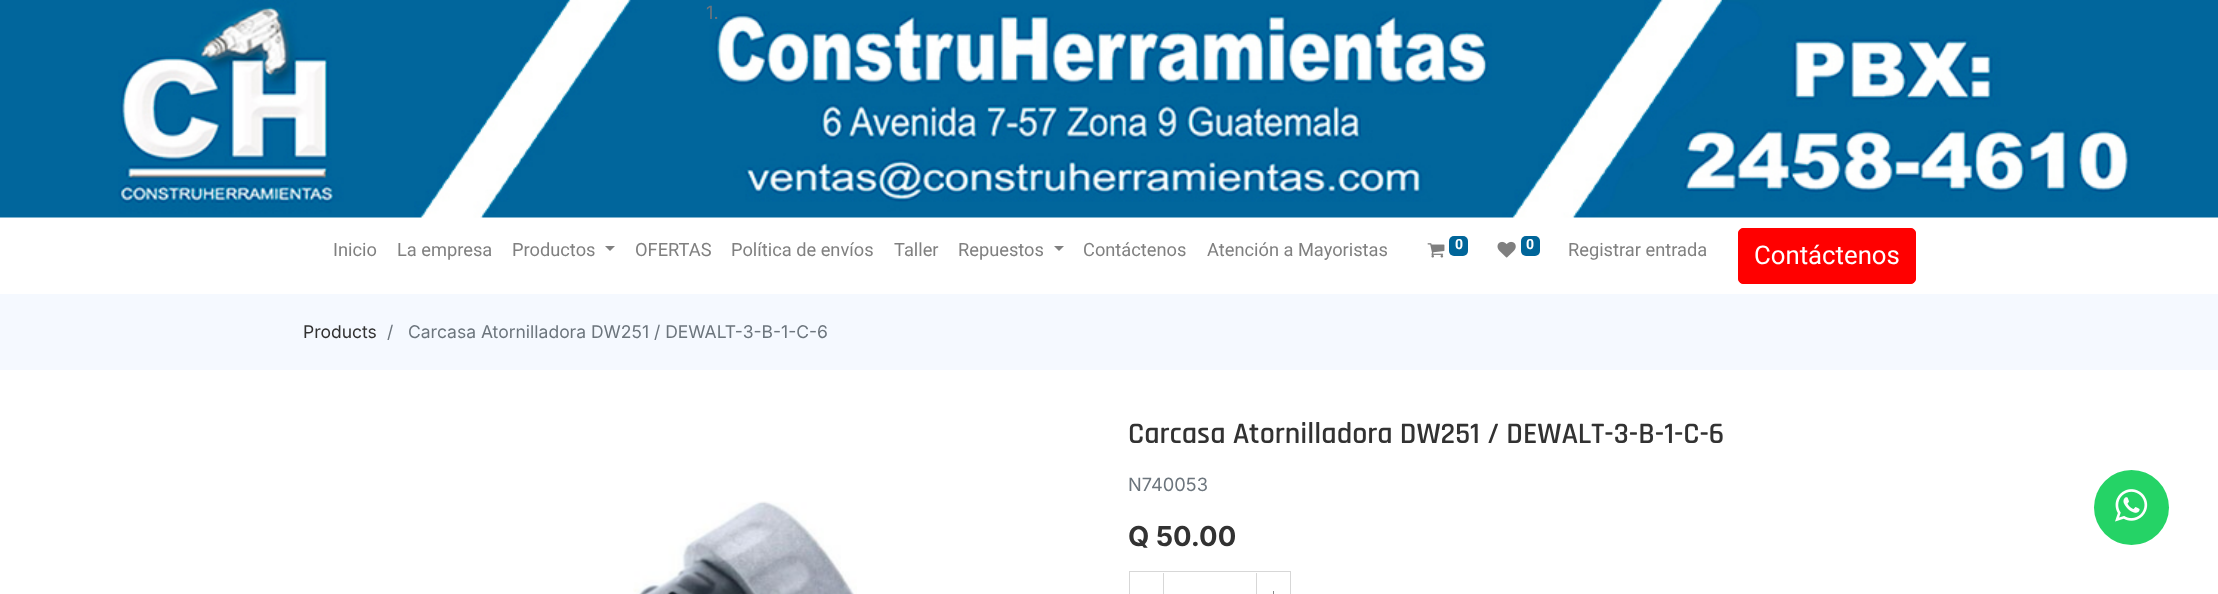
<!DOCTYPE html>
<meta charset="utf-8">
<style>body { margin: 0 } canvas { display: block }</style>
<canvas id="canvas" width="2218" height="594"></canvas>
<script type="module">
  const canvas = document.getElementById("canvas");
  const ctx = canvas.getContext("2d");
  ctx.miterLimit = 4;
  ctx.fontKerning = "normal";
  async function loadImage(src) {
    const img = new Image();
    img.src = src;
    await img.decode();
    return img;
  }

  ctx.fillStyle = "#ffffff";
  ctx.fillRect(0, 0, 2218, 594);
  ctx.drawImage(await loadImage("img1.png"), 0, 0, 2218, 218);
  ctx.font = "18.25px Inter";
  ctx.fillStyle = "#6c757d";
  ctx.fillText("1.", 706, 19);
  ctx.font = "18.25px Roboto";
  ctx.fillStyle = "#808080";
  ctx.fillText("Inicio", 333, 256);
  ctx.fillText("La empresa", 397, 256);
  ctx.fillText("Productos", 512, 256);
  ctx.beginPath();
  ctx.moveTo(605, 246);
  ctx.lineTo(615, 246);
  ctx.lineTo(610, 251);
  ctx.closePath();
  ctx.fill();
  ctx.fillText("OFERTAS", 635, 256);
  ctx.fillText("Política de envíos", 731, 256);
  ctx.fillText("Taller", 894, 256);
  ctx.fillText("Repuestos", 958, 256);
  ctx.beginPath();
  ctx.moveTo(1054, 246);
  ctx.lineTo(1064, 246);
  ctx.lineTo(1059, 251);
  ctx.closePath();
  ctx.fill();
  ctx.fillText("Contáctenos", 1083, 256);
  ctx.fillText("Atención a Mayoristas", 1207, 256);
  ctx.drawImage(await loadImage("img2.png"), 1427, 243, 18, 15);
  ctx.fillStyle = "#006599";
  ctx.beginPath();
  ctx.roundRect(1449, 236, 19, 20, 5);
  ctx.fill();
  ctx.font = "bold 14px Roboto";
  ctx.fillStyle = "#ffffff";
  ctx.fillText("0", 1455, 249);
  ctx.drawImage(await loadImage("img3.png"), 1497, 241, 19, 17);
  ctx.fillStyle = "#006599";
  ctx.beginPath();
  ctx.roundRect(1521, 236, 19, 20, 5);
  ctx.fill();
  ctx.fillStyle = "#ffffff";
  ctx.fillText("0", 1526, 249);
  ctx.font = "18.25px Roboto";
  ctx.fillStyle = "#808080";
  ctx.fillText("Registrar entrada", 1568, 256);
  ctx.fillStyle = "#ff0000";
  ctx.beginPath();
  ctx.roundRect(1738.5, 228.5, 177, 55, 4.5);
  ctx.fill();
  ctx.strokeStyle = "#ff0000";
  ctx.stroke();
  ctx.font = "25.75px Roboto";
  ctx.fillStyle = "#ffffff";
  ctx.fillText("Contáctenos", 1754, 264);
  ctx.fillStyle = "#f5f9ff";
  ctx.fillRect(0, 294, 2218, 76);
  ctx.font = "17.5px Inter";
  ctx.fillStyle = "#323232";
  ctx.fillText("Products", 303, 338);
  ctx.fillStyle = "#6c757d";
  ctx.fillText("/", 387, 338);
  ctx.fillText("Carcasa Atornilladora DW251 / DEWALT-3-B-1-C-6", 408, 338);
  ctx.drawImage(await loadImage("img4.png"), 633, 501, 224, 93);
  ctx.font = "600 30px Rajdhani";
  ctx.fillStyle = "#323232";
  ctx.fillText("Carcasa Atornilladora DW251 / DEWALT-3-B-1-C-6", 1128, 443);
  ctx.font = "18.25px Inter";
  ctx.fillStyle = "#6c757d";
  ctx.fillText("N740053", 1128, 491);
  ctx.font = "bold 27.5px Inter";
  ctx.fillStyle = "#323232";
  ctx.fillText("Q 50.00", 1128, 546);
  ctx.strokeStyle = "#d7d7d7";
  ctx.strokeRect(1129.5, 571.5, 161, 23);
  ctx.fillStyle = "#d7d7d7";
  ctx.fillRect(1163, 573, 1, 21);
  ctx.fillRect(1256, 573, 1, 21);
  ctx.fillStyle = "#888888";
  ctx.fillRect(1273, 591, 1, 3);
  ctx.fillStyle = "#25d366";
  ctx.beginPath();
  ctx.arc(2131.5, 507.5, 37.5, 0, Math.PI * 2);
  ctx.fill();
  ctx.drawImage(await loadImage("img5.png"), 2115, 489, 33, 33);
</script>
